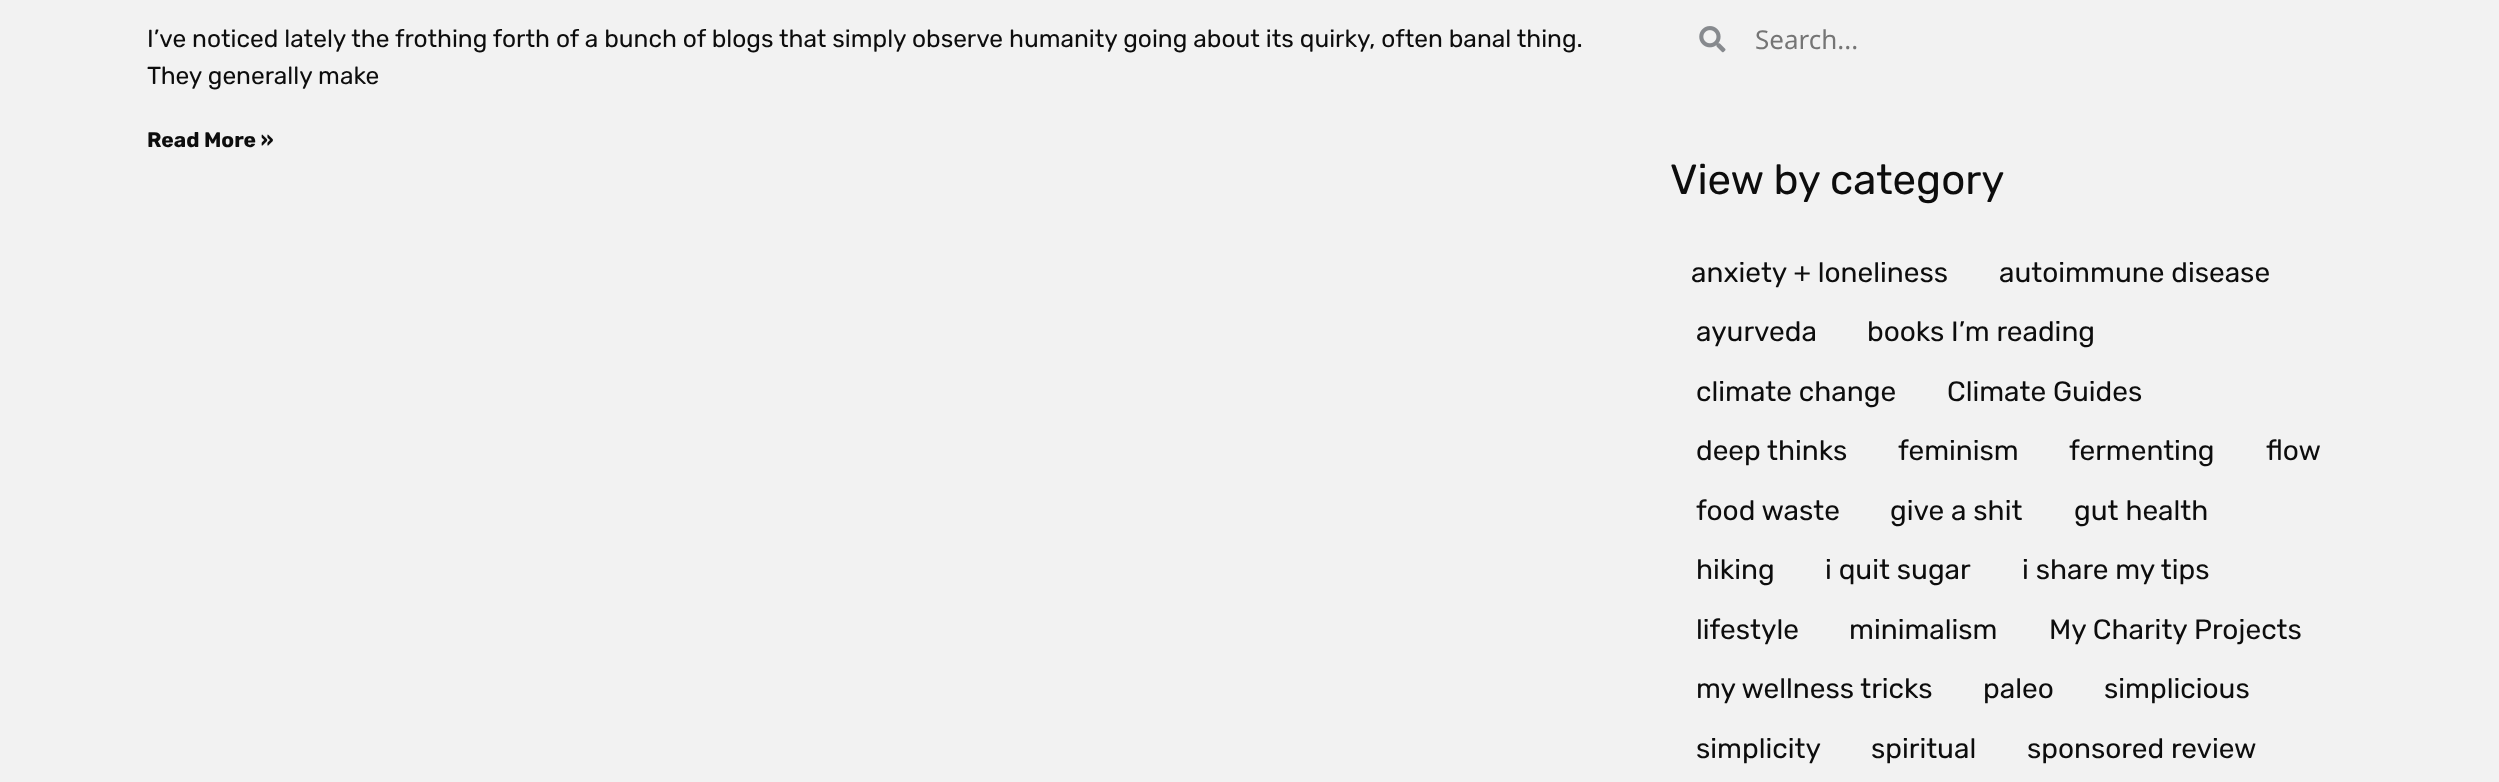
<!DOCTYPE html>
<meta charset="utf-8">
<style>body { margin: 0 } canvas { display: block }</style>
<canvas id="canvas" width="2499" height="782"></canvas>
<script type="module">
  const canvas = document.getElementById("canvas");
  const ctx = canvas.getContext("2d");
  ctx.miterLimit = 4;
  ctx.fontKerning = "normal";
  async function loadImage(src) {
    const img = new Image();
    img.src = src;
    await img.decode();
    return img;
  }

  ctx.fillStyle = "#f2f2f2";
  ctx.fillRect(0, 0, 2499, 782);
  ctx.font = "24.5px Rubik";
  ctx.fillStyle = "#0d0d0d";
  ctx.fillText("I’ve noticed lately the frothing forth of a bunch of blogs that simply observe humanity going about its quirky, often banal thing.", 147, 47);
  ctx.fillText("They generally make", 147, 84);
  ctx.font = "bold 21px Rubik";
  ctx.fillText("Read More »", 147, 147);
  ctx.drawImage(await loadImage("img1.png"), 1699, 26, 27, 27);
  ctx.font = "26px Noto Sans";
  ctx.fillStyle = "#757575";
  ctx.fillText("Search...", 1755, 49);
  ctx.font = "42px Rubik";
  ctx.fillStyle = "#0d0d0d";
  ctx.fillText("View by category", 1670, 194);
  ctx.font = "28px Rubik";
  ctx.fillText("anxiety + loneliness", 1691, 282);
  ctx.fillText("autoimmune disease", 1999, 282);
  ctx.fillText("ayurveda", 1696, 341);
  ctx.fillText("books I’m reading", 1867, 341);
  ctx.fillText("climate change", 1696, 401);
  ctx.fillText("Climate Guides", 1947, 401);
  ctx.fillText("deep thinks", 1696, 460);
  ctx.fillText("feminism", 1898, 460);
  ctx.fillText("fermenting", 2069, 460);
  ctx.fillText("flow", 2266, 460);
  ctx.fillText("food waste", 1696, 520);
  ctx.fillText("give a shit", 1890, 520);
  ctx.fillText("gut health", 2074, 520);
  ctx.fillText("hiking", 1696, 579);
  ctx.fillText("i quit sugar", 1825, 579);
  ctx.fillText("i share my tips", 2022, 579);
  ctx.fillText("lifestyle", 1696, 639);
  ctx.fillText("minimalism", 1849, 639);
  ctx.fillText("My Charity Projects", 2049, 639);
  ctx.fillText("my wellness tricks", 1696, 698);
  ctx.fillText("paleo", 1983, 698);
  ctx.fillText("simplicious", 2104, 698);
  ctx.fillText("simplicity", 1696, 758);
  ctx.fillText("spiritual", 1871, 758);
  ctx.fillText("sponsored review", 2027, 758);
</script>
